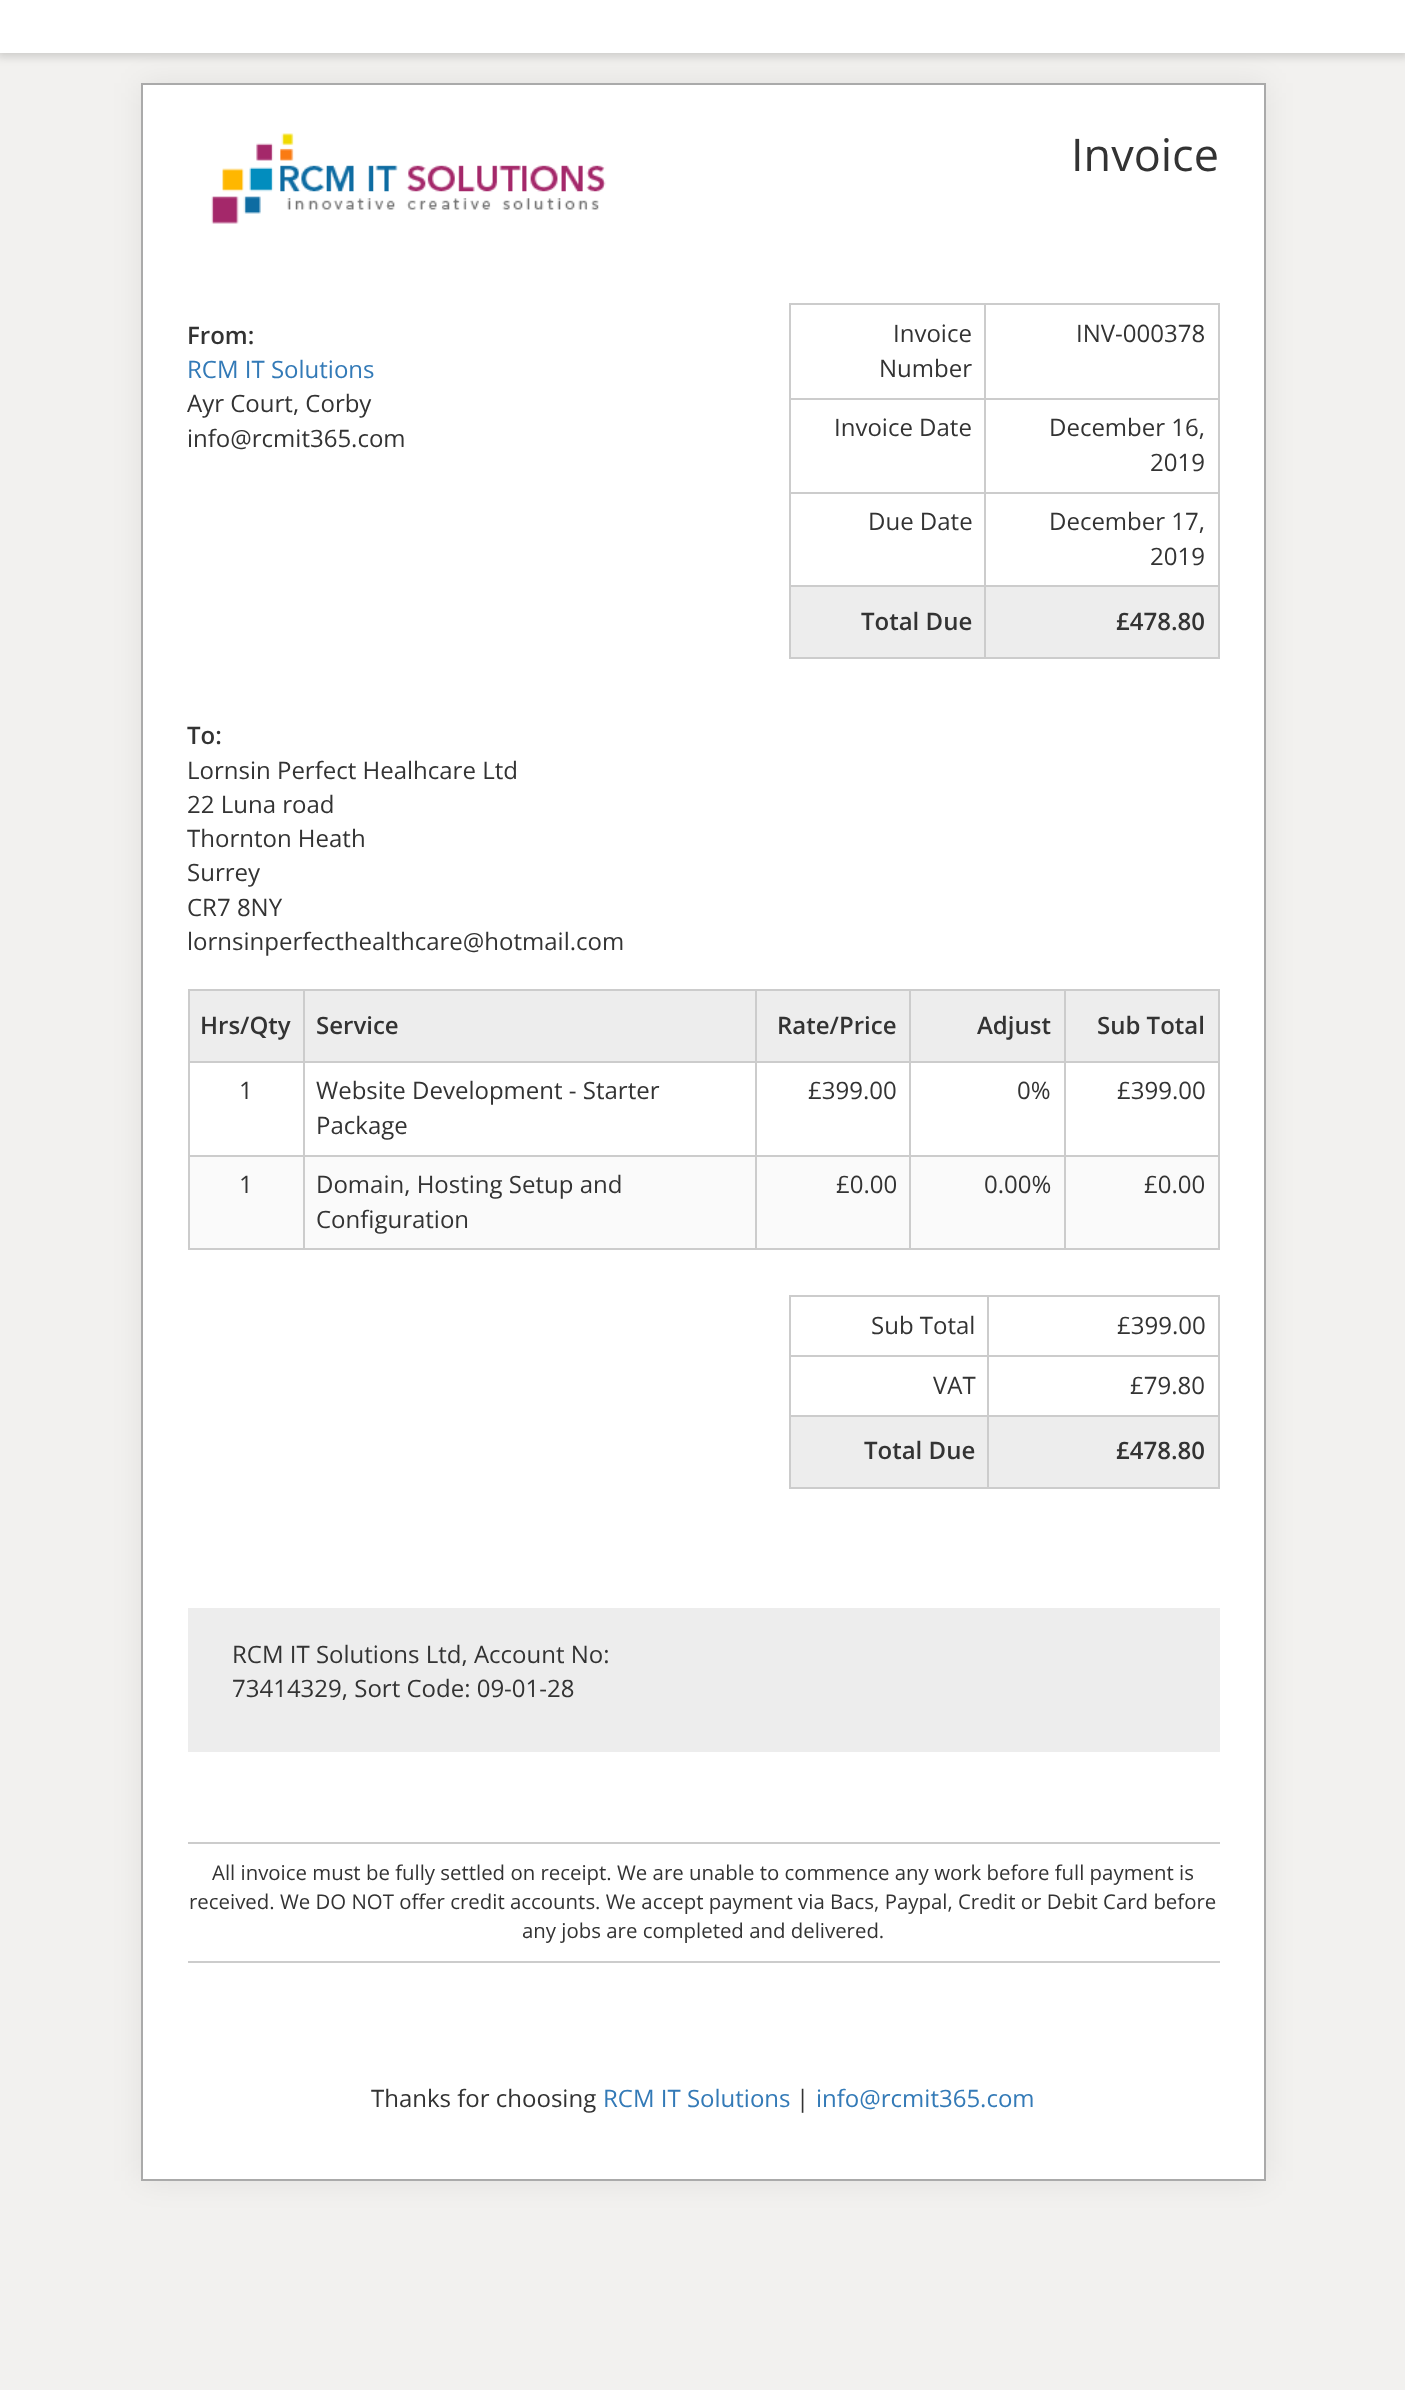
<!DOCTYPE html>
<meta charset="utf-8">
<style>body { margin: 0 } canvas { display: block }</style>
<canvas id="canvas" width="1405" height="2390"></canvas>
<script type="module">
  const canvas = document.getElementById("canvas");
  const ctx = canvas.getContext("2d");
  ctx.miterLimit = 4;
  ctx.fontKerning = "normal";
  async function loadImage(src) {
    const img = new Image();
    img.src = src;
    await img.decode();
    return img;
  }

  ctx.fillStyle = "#f2f1ef";
  ctx.fillRect(0, 0, 1405, 2390);
  ctx.fillStyle = "rgba(0, 0, 0, 0.15)";
  ctx.filter = "blur(4px)";
  ctx.beginPath();
  ctx.rect(-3, -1, 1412, 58);
  ctx.fill();
  ctx.filter = "none";
  ctx.fillStyle = "#ffffff";
  ctx.fillRect(0, 0, 1405, 53);
  ctx.fillStyle = "rgba(0, 0, 0, 0.07)";
  ctx.filter = "blur(15px)";
  ctx.beginPath();
  ctx.rect(141, 83, 1125, 2098);
  ctx.fill();
  ctx.filter = "none";
  ctx.fillStyle = "#ffffff";
  ctx.beginPath();
  ctx.rect(142, 84, 1123, 2096);
  ctx.fill();
  ctx.strokeStyle = "#aaaaaa";
  ctx.lineWidth = 2;
  ctx.stroke();
  ctx.drawImage(await loadImage("img1.png"), 211, 133, 395, 91);
  ctx.font = "45px Open Sans";
  ctx.fillStyle = "#333333";
  ctx.fillText("Invoice", 1071, 171);
  ctx.font = "600 24px Open Sans";
  ctx.fillText("From:", 187, 344);
  ctx.font = "24px Open Sans";
  ctx.fillStyle = "#337ab7";
  ctx.fillText("RCM IT Solutions", 187, 378);
  ctx.fillStyle = "#333333";
  ctx.fillText("Ayr Court, Corby", 187, 412);
  ctx.fillText("info@rcmit365.com", 187, 447);
  ctx.fillStyle = "#cccccc";
  ctx.fillRect(789, 303, 431, 2);
  ctx.fillRect(1218, 303, 2, 356);
  ctx.fillRect(789, 657, 431, 2);
  ctx.fillRect(789, 303, 2, 356);
  ctx.fillStyle = "#333333";
  ctx.fillText("Invoice", 893, 342);
  ctx.fillText("Number", 879, 377);
  ctx.fillStyle = "#cccccc";
  ctx.fillRect(984, 398, 236, 2);
  ctx.fillRect(984, 492, 236, 2);
  ctx.fillRect(984, 585, 236, 2);
  ctx.fillRect(984, 585, 2, 74);
  ctx.fillRect(789, 585, 197, 2);
  ctx.fillRect(984, 492, 2, 95);
  ctx.fillRect(789, 492, 197, 2);
  ctx.fillRect(984, 398, 2, 96);
  ctx.fillRect(789, 398, 197, 2);
  ctx.fillRect(984, 303, 2, 96);
  ctx.fillStyle = "#333333";
  ctx.fillText("INV-000378", 1076, 342);
  ctx.fillText("Invoice Date", 834, 436);
  ctx.fillText("December 16,", 1049, 436);
  ctx.fillText("2019", 1150, 471);
  ctx.fillText("Due Date", 868, 530);
  ctx.fillText("December 17,", 1049, 530);
  ctx.fillText("2019", 1150, 565);
  ctx.fillStyle = "#ededed";
  ctx.fillRect(791, 587, 193, 70);
  ctx.font = "600 24px Open Sans";
  ctx.fillStyle = "#333333";
  ctx.fillText("Total Due", 861, 630);
  ctx.fillStyle = "#ededed";
  ctx.fillRect(986, 587, 232, 70);
  ctx.fillStyle = "#333333";
  ctx.fillText("£478.80", 1116, 630);
  ctx.fillText("To:", 187, 744);
  ctx.font = "24px Open Sans";
  ctx.fillText("Lornsin Perfect Healhcare Ltd", 187, 779);
  ctx.fillText("22 Luna road", 187, 813);
  ctx.fillText("Thornton Heath", 187, 847);
  ctx.fillText("Surrey", 187, 881);
  ctx.fillText("CR7 8NY", 187, 916);
  ctx.fillText("lornsinperfecthealthcare@hotmail.com", 187, 950);
  ctx.fillStyle = "#cccccc";
  ctx.fillRect(188, 989, 1032, 2);
  ctx.fillRect(1218, 989, 2, 261);
  ctx.fillRect(188, 1248, 1032, 2);
  ctx.fillRect(188, 989, 2, 261);
  ctx.fillStyle = "#ededed";
  ctx.fillRect(190, 991, 113, 70);
  ctx.font = "600 24px Open Sans";
  ctx.fillStyle = "#333333";
  ctx.fillText("Hrs/Qty", 200, 1034);
  ctx.fillStyle = "#ededed";
  ctx.fillRect(305, 991, 450, 70);
  ctx.fillStyle = "#cccccc";
  ctx.fillRect(1064, 1061, 156, 2);
  ctx.fillRect(1064, 1155, 156, 2);
  ctx.fillStyle = "#fafafa";
  ctx.fillRect(190, 1157, 1028, 91);
  ctx.fillStyle = "#cccccc";
  ctx.fillRect(1064, 1155, 2, 95);
  ctx.fillRect(909, 1155, 156, 2);
  ctx.fillRect(1064, 1061, 2, 96);
  ctx.fillRect(909, 1061, 156, 2);
  ctx.fillRect(909, 1155, 2, 95);
  ctx.fillRect(755, 1155, 156, 2);
  ctx.fillRect(909, 1061, 2, 96);
  ctx.fillRect(755, 1061, 156, 2);
  ctx.fillRect(755, 1155, 2, 95);
  ctx.fillRect(303, 1155, 453, 2);
  ctx.fillRect(755, 1061, 2, 96);
  ctx.fillRect(303, 1061, 453, 2);
  ctx.fillRect(303, 1155, 2, 95);
  ctx.fillRect(188, 1155, 117, 2);
  ctx.fillRect(303, 1061, 2, 96);
  ctx.fillRect(188, 1061, 117, 2);
  ctx.fillRect(303, 989, 2, 73);
  ctx.fillStyle = "#333333";
  ctx.fillText("Service", 316, 1034);
  ctx.fillStyle = "#ededed";
  ctx.fillRect(757, 991, 152, 70);
  ctx.fillStyle = "#cccccc";
  ctx.fillRect(755, 989, 2, 73);
  ctx.fillStyle = "#333333";
  ctx.fillText("Rate/Price", 777, 1034);
  ctx.fillStyle = "#ededed";
  ctx.fillRect(911, 991, 153, 70);
  ctx.fillStyle = "#cccccc";
  ctx.fillRect(909, 989, 2, 73);
  ctx.fillStyle = "#333333";
  ctx.fillText("Adjust", 977, 1034);
  ctx.fillStyle = "#ededed";
  ctx.fillRect(1066, 991, 152, 70);
  ctx.fillStyle = "#cccccc";
  ctx.fillRect(1064, 989, 2, 73);
  ctx.fillStyle = "#333333";
  ctx.fillText("Sub Total", 1097, 1034);
  ctx.font = "24px Open Sans";
  ctx.fillText("1", 239, 1099);
  ctx.fillText("Website Development - Starter", 316, 1099);
  ctx.fillText("Package", 316, 1134);
  ctx.fillText("£399.00", 808, 1099);
  ctx.fillText("0%", 1017, 1099);
  ctx.fillText("£399.00", 1117, 1099);
  ctx.fillText("1", 239, 1193);
  ctx.fillText("Domain, Hosting Setup and", 316, 1193);
  ctx.fillText("Configuration", 316, 1228);
  ctx.fillText("£0.00", 836, 1193);
  ctx.fillText("0.00%", 984, 1193);
  ctx.fillText("£0.00", 1144, 1193);
  ctx.fillStyle = "#cccccc";
  ctx.fillRect(789, 1295, 431, 2);
  ctx.fillRect(1218, 1295, 2, 193);
  ctx.fillRect(789, 1487, 431, 2);
  ctx.fillRect(789, 1295, 2, 193);
  ctx.fillStyle = "#333333";
  ctx.fillText("Sub Total", 871, 1334);
  ctx.fillStyle = "#cccccc";
  ctx.fillRect(987, 1355, 233, 2);
  ctx.fillRect(987, 1415, 233, 2);
  ctx.fillRect(987, 1415, 2, 73);
  ctx.fillRect(789, 1415, 200, 2);
  ctx.fillRect(987, 1355, 2, 61);
  ctx.fillRect(789, 1355, 200, 2);
  ctx.fillRect(987, 1295, 2, 61);
  ctx.fillStyle = "#333333";
  ctx.fillText("£399.00", 1117, 1334);
  ctx.fillText("VAT", 933, 1394);
  ctx.fillText("£79.80", 1130, 1394);
  ctx.fillStyle = "#ededed";
  ctx.fillRect(791, 1417, 196, 70);
  ctx.font = "600 24px Open Sans";
  ctx.fillStyle = "#333333";
  ctx.fillText("Total Due", 864, 1459);
  ctx.fillStyle = "#ededed";
  ctx.fillRect(989, 1417, 229, 70);
  ctx.fillStyle = "#333333";
  ctx.fillText("£478.80", 1116, 1459);
  ctx.fillStyle = "#ededed";
  ctx.fillRect(188, 1608, 1032, 144);
  ctx.font = "24px Open Sans";
  ctx.fillStyle = "#333333";
  ctx.fillText("RCM IT Solutions Ltd, Account No:", 232, 1663);
  ctx.fillText("73414329, Sort Code: 09-01-28", 232, 1697);
  ctx.fillStyle = "#cccccc";
  ctx.fillRect(188, 1842, 1032, 2);
  ctx.fillRect(188, 1961, 1032, 2);
  ctx.font = "20.4px Open Sans";
  ctx.fillStyle = "#333333";
  ctx.fillText("All invoice must be fully settled on receipt. We are unable to commence any work before full payment is", 212, 1880);
  ctx.fillText("received. We DO NOT offer credit accounts. We accept payment via Bacs, Paypal, Credit or Debit Card before", 189, 1909);
  ctx.fillText("any jobs are completed and delivered.", 522, 1938);
  ctx.font = "24px Open Sans";
  ctx.fillText("Thanks for choosing", 371, 2107);
  ctx.fillStyle = "#337ab7";
  ctx.fillText("RCM IT Solutions", 603, 2107);
  ctx.fillStyle = "#333333";
  ctx.fillText("|", 796, 2107);
  ctx.fillStyle = "#337ab7";
  ctx.fillText("info@rcmit365.com", 816, 2107);
</script>
